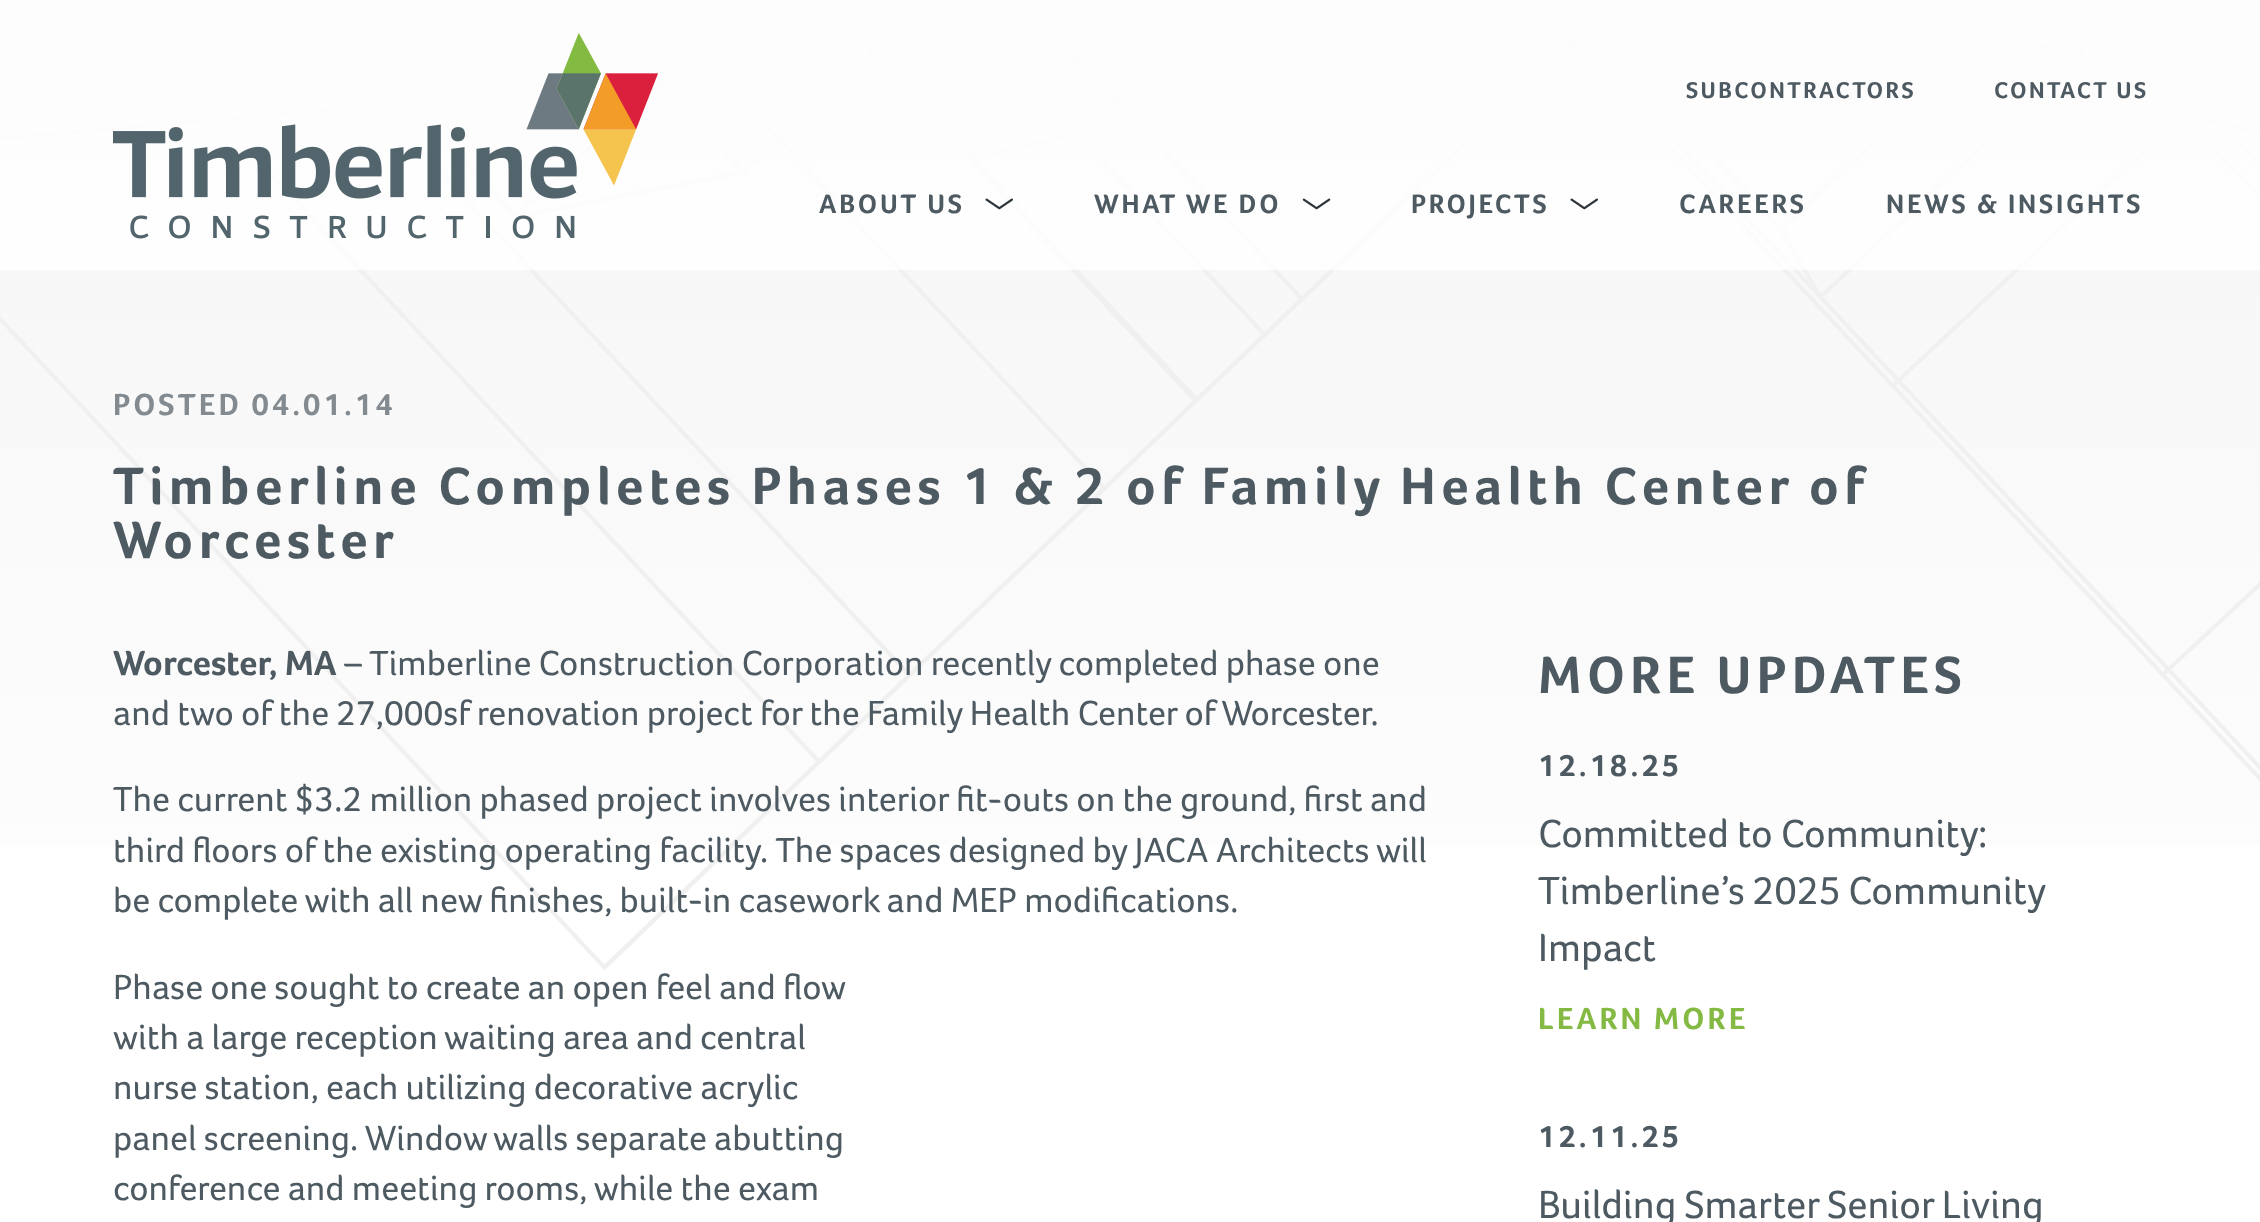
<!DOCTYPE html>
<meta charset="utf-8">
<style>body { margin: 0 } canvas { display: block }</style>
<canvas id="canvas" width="2260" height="1222"></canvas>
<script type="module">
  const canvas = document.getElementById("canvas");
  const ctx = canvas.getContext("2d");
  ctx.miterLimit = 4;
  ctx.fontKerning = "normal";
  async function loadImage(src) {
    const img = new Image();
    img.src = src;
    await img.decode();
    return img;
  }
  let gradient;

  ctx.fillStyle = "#ffffff";
  ctx.fillRect(0, 0, 2260, 1222);
  gradient = ctx.createLinearGradient(1131, 0, 1131, 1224);
  gradient.addColorStop(0, "#f5f5f5");
  gradient.addColorStop(0.92, "#ffffff");
  ctx.fillStyle = gradient;
  ctx.fillRect(0, 0, 2260, 845);
  ctx.drawImage(await loadImage("img1.png"), 0, 0, 2260, 970);
  ctx.fillStyle = "rgba(255, 255, 255, 0.8)";
  ctx.fillRect(0, 0, 2260, 270);
  ctx.drawImage(await loadImage("img2.png"), 113, 33, 545, 206);
  ctx.letterSpacing = "2.4px";
  ctx.font = "bold 23.6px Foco";
  ctx.fillStyle = "#4e5a62";
  ctx.fillText("SUBCONTRACTORS", 1686, 98);
  ctx.fillText("CONTACT US", 1994, 98);
  ctx.letterSpacing = "2.75px";
  ctx.font = "bold 27.5px Foco";
  ctx.fillText("ABOUT US", 819, 213);
  ctx.drawImage(await loadImage("img3.png"), 985, 198, 28, 12);
  ctx.fillText("WHAT WE DO", 1094, 213);
  ctx.drawImage(await loadImage("img4.png"), 1302, 198, 29, 12);
  ctx.fillText("PROJECTS", 1411, 213);
  ctx.drawImage(await loadImage("img5.png"), 1570, 198, 28, 12);
  ctx.fillText("CAREERS", 1679, 213);
  ctx.fillText("NEWS & INSIGHTS", 1886, 213);
  ctx.letterSpacing = "3.1px";
  ctx.font = "bold 31.5px Foco";
  ctx.fillStyle = "#838b91";
  ctx.fillText("POSTED 04.01.14", 113, 415);
  ctx.letterSpacing = "5.4px";
  ctx.wordSpacing = "-0.1px";
  ctx.font = "bold 54px Foco";
  ctx.fillStyle = "#4e5a62";
  ctx.fillText("Timberline Completes Phases 1 & 2 of Family Health Center of", 113, 504);
  ctx.wordSpacing = "0px";
  ctx.fillText("Worcester", 113, 558);
  ctx.letterSpacing = "0px";
  ctx.font = "bold 36px Foco";
  ctx.fillText("Worcester, MA", 113, 675);
  ctx.font = "36px Foco";
  ctx.fillText("– Timberline Construction Corporation recently completed phase one", 344, 675);
  ctx.fillText("and two of the 27,000sf renovation project for the Family Health Center of Worcester.", 113, 725);
  ctx.fillText("The current $3.2 million phased project involves interior fit-outs on the ground, first and", 113, 811);
  ctx.fillText("third floors of the existing operating facility. The spaces designed by JACA Architects will", 113, 862);
  ctx.fillText("be complete with all new finishes, built-in casework and MEP modifications.", 113, 912);
  ctx.fillText("Phase one sought to create an open feel and flow", 113, 999);
  ctx.fillText("with a large reception waiting area and central", 113, 1049);
  ctx.fillText("nurse station, each utilizing decorative acrylic", 113, 1099);
  ctx.fillText("panel screening. Window walls separate abutting", 113, 1150);
  ctx.fillText("conference and meeting rooms, while the exam", 113, 1200);
  ctx.letterSpacing = "5.4px";
  ctx.font = "bold 54px Foco";
  ctx.fillText("MORE UPDATES", 1538, 693);
  ctx.letterSpacing = "3.1px";
  ctx.font = "bold 31.5px Foco";
  ctx.fillText("12.18.25", 1538, 776);
  ctx.letterSpacing = "0px";
  ctx.font = "40.5px Foco";
  ctx.fillText("Committed to Community:", 1538, 847);
  ctx.wordSpacing = "-1px";
  ctx.fillText("Timberline’s 2025 Community", 1538, 904);
  ctx.wordSpacing = "0px";
  ctx.fillText("Impact", 1538, 961);
  ctx.letterSpacing = "3.1px";
  ctx.font = "bold 31.5px Foco";
  ctx.fillStyle = "#84ba43";
  ctx.fillText("LEARN MORE", 1538, 1029);
  ctx.fillStyle = "#4e5a62";
  ctx.fillText("12.11.25", 1538, 1147);
  ctx.letterSpacing = "0px";
  ctx.font = "40.5px Foco";
  ctx.fillText("Building Smarter Senior Living", 1538, 1218);
</script>
